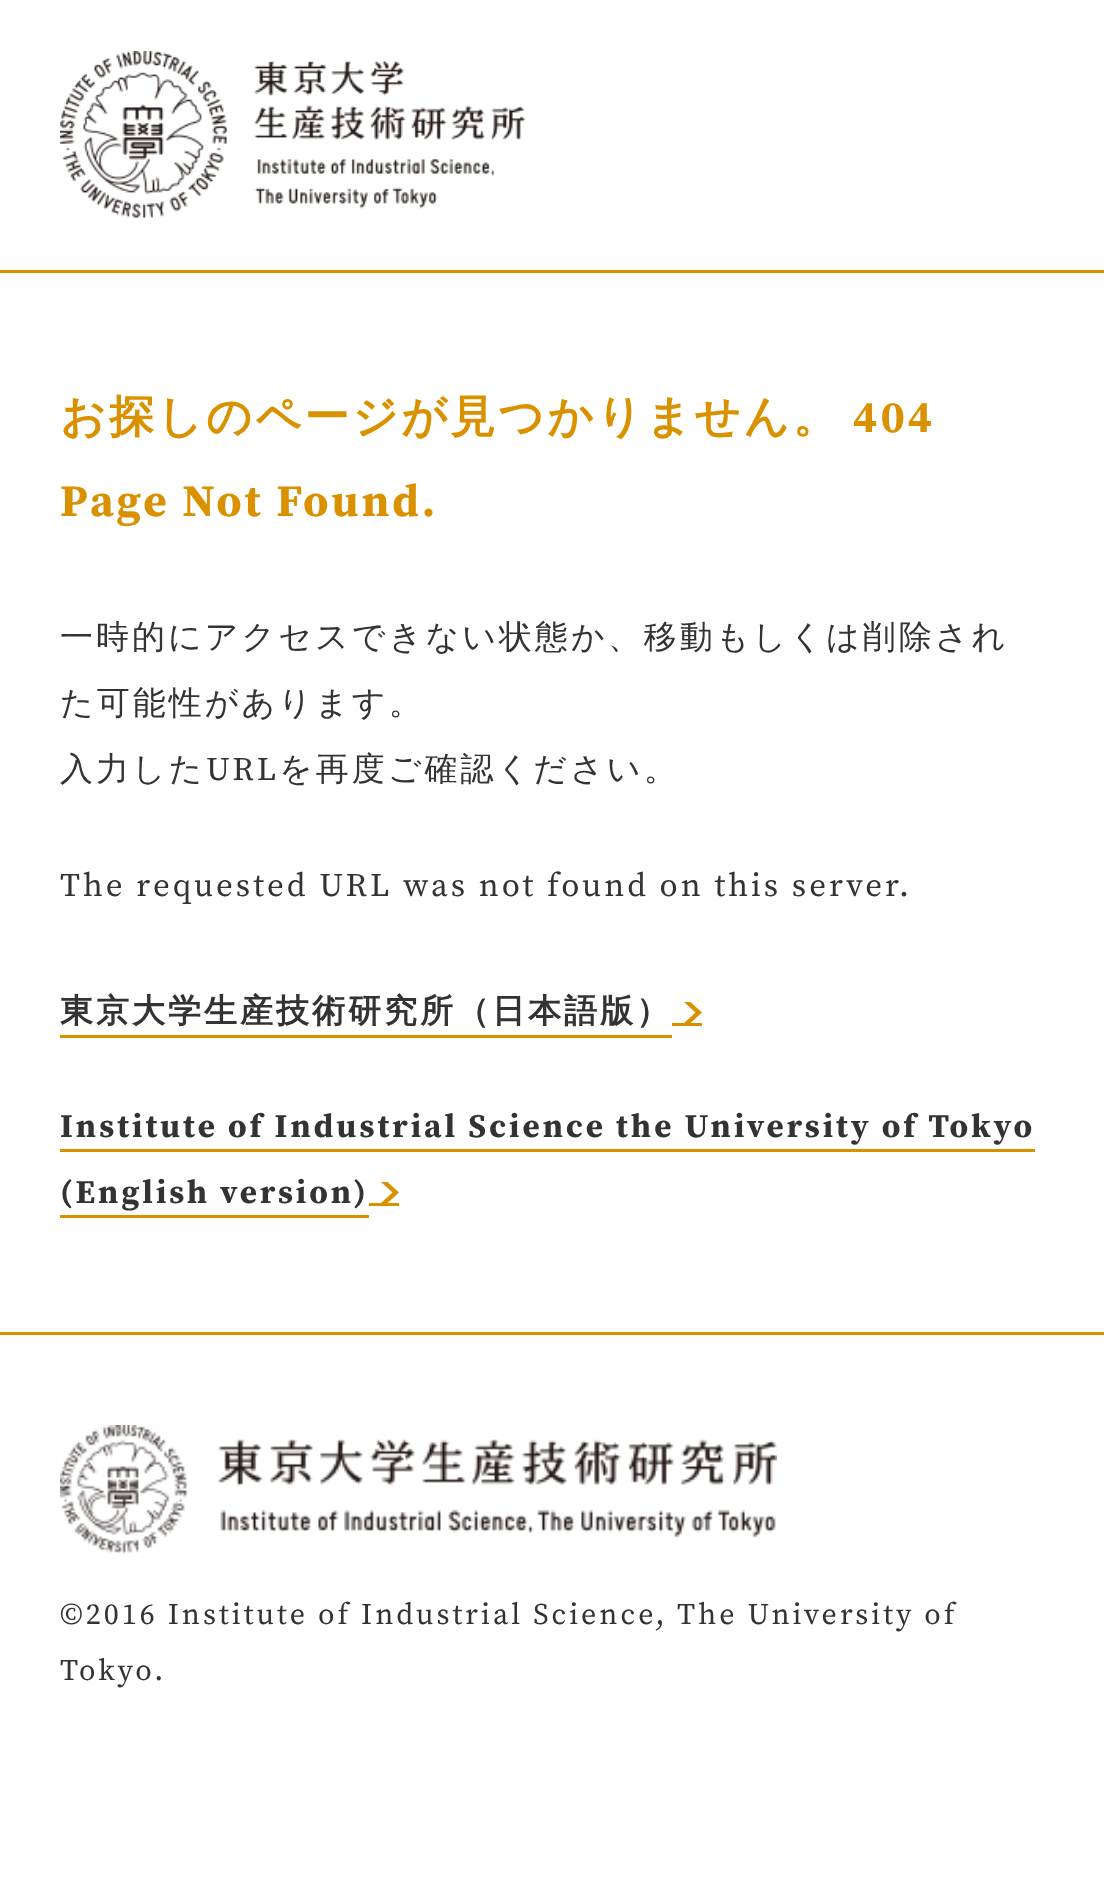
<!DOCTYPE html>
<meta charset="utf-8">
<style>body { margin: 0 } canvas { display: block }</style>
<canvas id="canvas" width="1104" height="1901"></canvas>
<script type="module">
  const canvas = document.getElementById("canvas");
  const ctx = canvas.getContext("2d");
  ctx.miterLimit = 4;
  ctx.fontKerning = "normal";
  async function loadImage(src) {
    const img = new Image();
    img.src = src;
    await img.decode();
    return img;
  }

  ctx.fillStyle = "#ffffff";
  ctx.fillRect(0, 0, 1104, 1901);
  ctx.fillStyle = "#da9100";
  ctx.fillRect(0, 270, 1104, 3);
  ctx.drawImage(await loadImage("img1.png"), 60, 51, 465, 167);
  ctx.letterSpacing = "3px";
  ctx.font = "bold 45px WenQuanYi Zen Hei";
  ctx.fillText("お探しのページが見つかりません。", 60, 432);
  ctx.font = "bold 45px Source Serif Pro";
  ctx.fillText("404", 853, 432);
  ctx.fillText("Page Not Found.", 60, 516);
  ctx.font = "500 33px WenQuanYi Zen Hei";
  ctx.fillStyle = "#333333";
  ctx.fillText("一時的にアクセスできない状態か、移動もしくは削除され", 60, 648);
  ctx.fillText("た可能性があります。", 60, 714);
  ctx.fillText("入力した", 60, 780);
  ctx.font = "33px Source Serif Pro";
  ctx.fillText("URL", 206, 780);
  ctx.font = "500 33px WenQuanYi Zen Hei";
  ctx.fillText("を再度ご確認ください。", 279, 780);
  ctx.font = "33px Source Serif Pro";
  ctx.fillText("The requested URL was not found on this server.", 60, 896);
  ctx.fillStyle = "#da9100";
  ctx.fillRect(60, 1035, 612, 3);
  ctx.fillRect(672, 1023, 30, 3);
  ctx.font = "bold 33px WenQuanYi Zen Hei";
  ctx.fillStyle = "#333333";
  ctx.fillText("東京大学生産技術研究所（日本語版）", 60, 1022);
  ctx.fillStyle = "#da9100";
  ctx.beginPath();
  ctx.moveTo(684, 1002);
  ctx.lineTo(695.5, 1012.5);
  ctx.lineTo(684, 1023);
  ctx.lineTo(690.5, 1023);
  ctx.lineTo(702, 1012.5);
  ctx.lineTo(690.5, 1002);
  ctx.closePath();
  ctx.fill("evenodd");
  ctx.fillRect(60, 1149, 975, 3);
  ctx.fillRect(60, 1215, 309, 3);
  ctx.fillRect(369, 1203, 30, 3);
  ctx.font = "bold 33px Source Serif Pro";
  ctx.fillStyle = "#333333";
  ctx.fillText("Institute of Industrial Science the University of Tokyo", 60, 1137);
  ctx.fillText("(English version)", 60, 1203);
  ctx.fillStyle = "#da9100";
  ctx.beginPath();
  ctx.moveTo(381, 1182);
  ctx.lineTo(392.5, 1192.5);
  ctx.lineTo(381, 1203);
  ctx.lineTo(387.5, 1203);
  ctx.lineTo(399, 1192.5);
  ctx.lineTo(387.5, 1182);
  ctx.closePath();
  ctx.fill("evenodd");
  ctx.fillRect(0, 1332, 1104, 3);
  ctx.drawImage(await loadImage("img2.png"), 60, 1425, 717, 129);
  ctx.font = "30px Source Serif Pro";
  ctx.fillStyle = "#333333";
  ctx.fillText("©2016 Institute of Industrial Science, The University of", 60, 1624);
  ctx.fillText("Tokyo.", 60, 1680);
</script>
